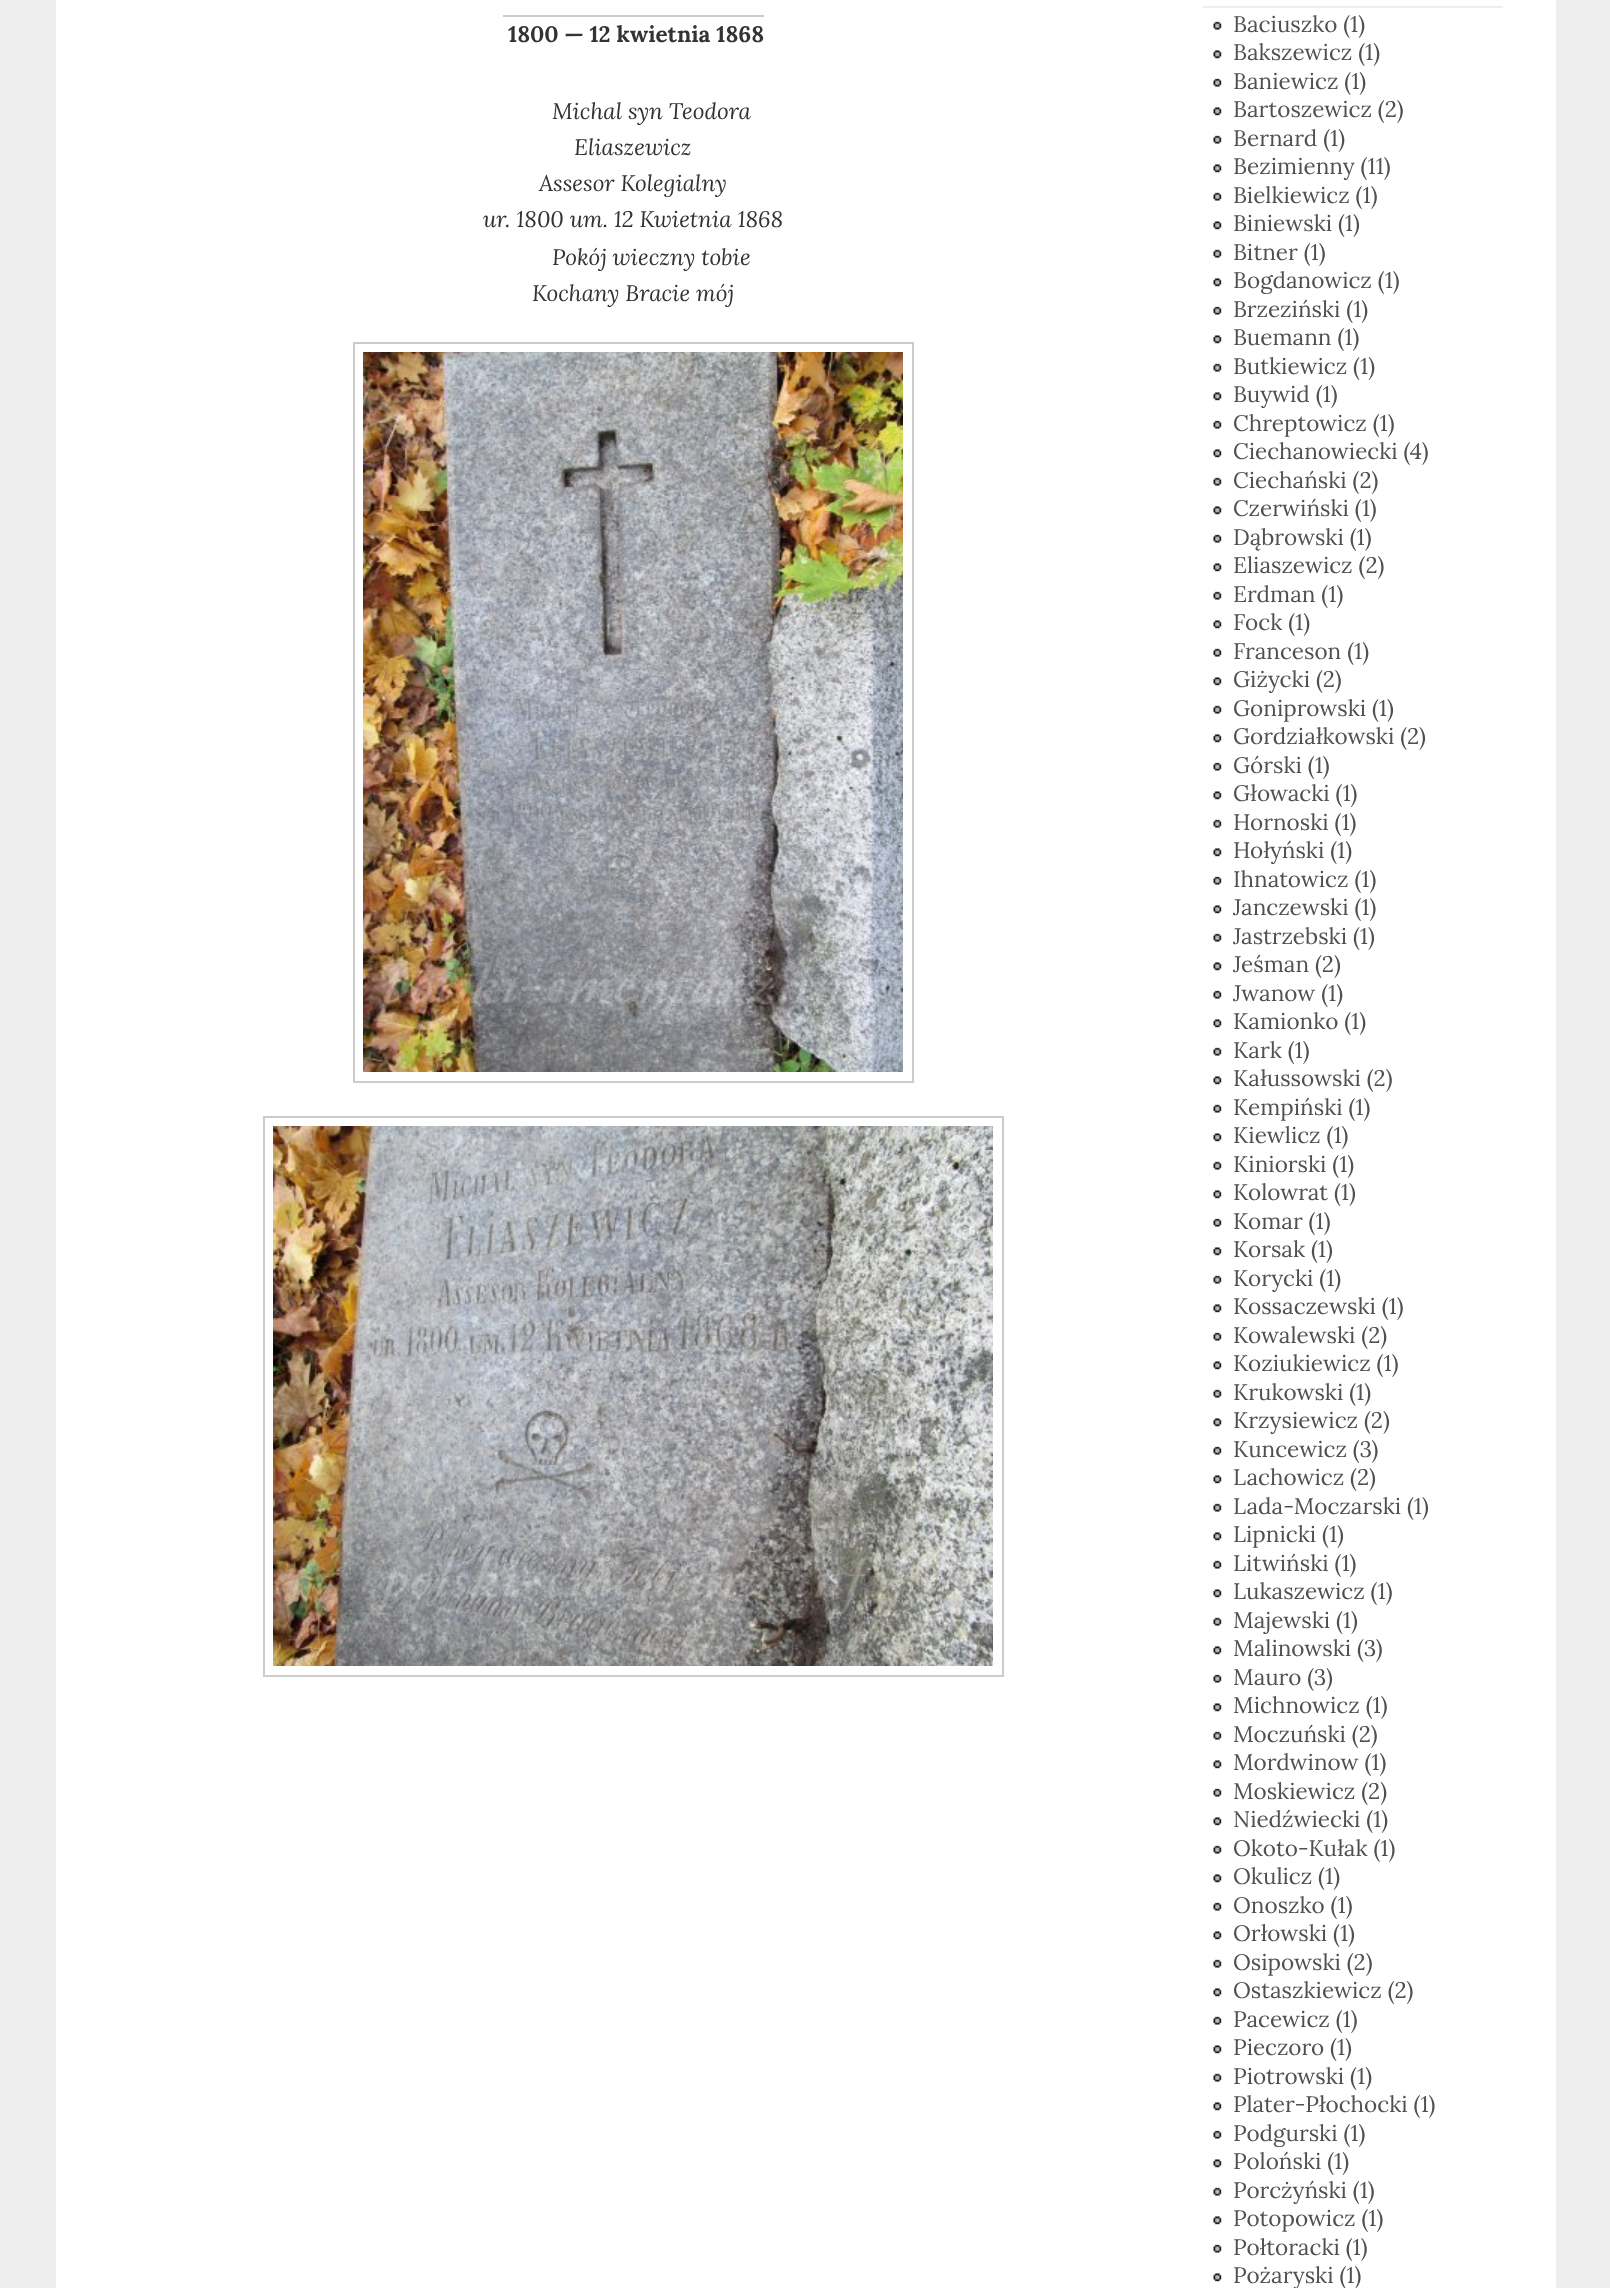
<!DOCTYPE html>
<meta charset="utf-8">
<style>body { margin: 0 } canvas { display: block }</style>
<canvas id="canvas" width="1610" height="2288"></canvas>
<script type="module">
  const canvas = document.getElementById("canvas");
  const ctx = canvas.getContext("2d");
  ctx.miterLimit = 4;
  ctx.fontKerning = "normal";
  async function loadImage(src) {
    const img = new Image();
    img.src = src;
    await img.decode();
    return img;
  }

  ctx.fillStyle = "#eeeeee";
  ctx.fillRect(0, 0, 1610, 2288);
  ctx.fillStyle = "#ffffff";
  ctx.fillRect(56, 0, 1500, 2288);
  ctx.fillStyle = "#cccccc";
  ctx.fillRect(503, 15, 261, 2);
  ctx.font = "bold 22.5px Lora";
  ctx.fillStyle = "#333333";
  ctx.fillText("1800 — 12 kwietnia 1868", 508, 42);
  ctx.font = "italic 22.5px Lora";
  ctx.fillText("Michal syn Teodora", 552, 119);
  ctx.fillText("Eliaszewicz", 574, 155);
  ctx.fillText("Assesor Kolegialny", 539, 191);
  ctx.fillText("ur. 1800 um. 12 Kwietnia 1868", 483, 227);
  ctx.fillText("Pokój wieczny tobie", 552, 265);
  ctx.fillText("Kochany Bracie mój", 532, 301);
  ctx.strokeStyle = "#cccccc";
  ctx.lineWidth = 2;
  ctx.strokeRect(354, 343, 559, 739);
  ctx.drawImage(await loadImage("img1.png"), 363, 352, 540, 720);
  ctx.strokeRect(264, 1117, 739, 559);
  ctx.drawImage(await loadImage("img2.png"), 273, 1126, 720, 540);
  ctx.fillStyle = "#eeeeee";
  ctx.fillRect(1203, 6, 300, 2);
  ctx.drawImage(await loadImage("img3.png"), 1213, 21, 9, 9);
  ctx.font = "22.5px Lora";
  ctx.fillStyle = "#505050";
  ctx.fillText("Baciuszko (1)", 1233, 32);
  ctx.drawImage(await loadImage("img4.png"), 1213, 50, 9, 9);
  ctx.fillText("Bakszewicz (1)", 1233, 60);
  ctx.drawImage(await loadImage("img3.png"), 1213, 78, 9, 9);
  ctx.fillText("Baniewicz (1)", 1233, 89);
  ctx.drawImage(await loadImage("img4.png"), 1213, 107, 9, 9);
  ctx.fillText("Bartoszewicz (2)", 1233, 117);
  ctx.drawImage(await loadImage("img3.png"), 1213, 135, 9, 9);
  ctx.fillText("Bernard (1)", 1233, 146);
  ctx.drawImage(await loadImage("img4.png"), 1213, 164, 9, 9);
  ctx.fillText("Bezimienny (11)", 1233, 174);
  ctx.drawImage(await loadImage("img3.png"), 1213, 192, 9, 9);
  ctx.fillText("Bielkiewicz (1)", 1233, 203);
  ctx.drawImage(await loadImage("img4.png"), 1213, 221, 9, 9);
  ctx.fillText("Biniewski (1)", 1233, 231);
  ctx.drawImage(await loadImage("img3.png"), 1213, 249, 9, 9);
  ctx.fillText("Bitner (1)", 1233, 260);
  ctx.drawImage(await loadImage("img4.png"), 1213, 278, 9, 9);
  ctx.fillText("Bogdanowicz (1)", 1233, 288);
  ctx.drawImage(await loadImage("img3.png"), 1213, 306, 9, 9);
  ctx.fillText("Brzeziński (1)", 1233, 317);
  ctx.drawImage(await loadImage("img4.png"), 1213, 335, 9, 9);
  ctx.fillText("Buemann (1)", 1233, 345);
  ctx.drawImage(await loadImage("img3.png"), 1213, 363, 9, 9);
  ctx.fillText("Butkiewicz (1)", 1233, 374);
  ctx.drawImage(await loadImage("img4.png"), 1213, 392, 9, 9);
  ctx.fillText("Buywid (1)", 1233, 402);
  ctx.drawImage(await loadImage("img3.png"), 1213, 420, 9, 9);
  ctx.fillText("Chreptowicz (1)", 1233, 431);
  ctx.drawImage(await loadImage("img4.png"), 1213, 449, 9, 9);
  ctx.fillText("Ciechanowiecki (4)", 1233, 459);
  ctx.drawImage(await loadImage("img3.png"), 1213, 477, 9, 9);
  ctx.fillText("Ciechański (2)", 1233, 488);
  ctx.drawImage(await loadImage("img4.png"), 1213, 506, 9, 9);
  ctx.fillText("Czerwiński (1)", 1233, 516);
  ctx.drawImage(await loadImage("img3.png"), 1213, 534, 9, 9);
  ctx.fillText("Dąbrowski (1)", 1233, 545);
  ctx.drawImage(await loadImage("img4.png"), 1213, 563, 9, 9);
  ctx.fillText("Eliaszewicz (2)", 1233, 573);
  ctx.drawImage(await loadImage("img3.png"), 1213, 591, 9, 9);
  ctx.fillText("Erdman (1)", 1233, 602);
  ctx.drawImage(await loadImage("img4.png"), 1213, 620, 9, 9);
  ctx.fillText("Fock (1)", 1233, 630);
  ctx.drawImage(await loadImage("img3.png"), 1213, 648, 9, 9);
  ctx.fillText("Franceson (1)", 1233, 659);
  ctx.drawImage(await loadImage("img4.png"), 1213, 677, 9, 9);
  ctx.fillText("Giżycki (2)", 1233, 687);
  ctx.drawImage(await loadImage("img3.png"), 1213, 705, 9, 9);
  ctx.fillText("Goniprowski (1)", 1233, 716);
  ctx.drawImage(await loadImage("img4.png"), 1213, 734, 9, 9);
  ctx.fillText("Gordziałkowski (2)", 1233, 744);
  ctx.drawImage(await loadImage("img3.png"), 1213, 762, 9, 9);
  ctx.fillText("Górski (1)", 1233, 773);
  ctx.drawImage(await loadImage("img4.png"), 1213, 791, 9, 9);
  ctx.fillText("Głowacki (1)", 1233, 801);
  ctx.drawImage(await loadImage("img3.png"), 1213, 819, 9, 9);
  ctx.fillText("Hornoski (1)", 1233, 830);
  ctx.drawImage(await loadImage("img4.png"), 1213, 848, 9, 9);
  ctx.fillText("Hołyński (1)", 1233, 858);
  ctx.drawImage(await loadImage("img3.png"), 1213, 876, 9, 9);
  ctx.fillText("Ihnatowicz (1)", 1233, 887);
  ctx.drawImage(await loadImage("img4.png"), 1213, 905, 9, 9);
  ctx.fillText("Janczewski (1)", 1233, 915);
  ctx.drawImage(await loadImage("img3.png"), 1213, 933, 9, 9);
  ctx.fillText("Jastrzebski (1)", 1233, 944);
  ctx.drawImage(await loadImage("img4.png"), 1213, 962, 9, 9);
  ctx.fillText("Jeśman (2)", 1233, 972);
  ctx.drawImage(await loadImage("img3.png"), 1213, 990, 9, 9);
  ctx.fillText("Jwanow (1)", 1233, 1001);
  ctx.drawImage(await loadImage("img4.png"), 1213, 1019, 9, 9);
  ctx.fillText("Kamionko (1)", 1233, 1029);
  ctx.drawImage(await loadImage("img3.png"), 1213, 1047, 9, 9);
  ctx.fillText("Kark (1)", 1233, 1058);
  ctx.drawImage(await loadImage("img4.png"), 1213, 1076, 9, 9);
  ctx.fillText("Kałussowski (2)", 1233, 1086);
  ctx.drawImage(await loadImage("img3.png"), 1213, 1104, 9, 9);
  ctx.fillText("Kempiński (1)", 1233, 1115);
  ctx.drawImage(await loadImage("img4.png"), 1213, 1133, 9, 9);
  ctx.fillText("Kiewlicz (1)", 1233, 1143);
  ctx.drawImage(await loadImage("img3.png"), 1213, 1161, 9, 9);
  ctx.fillText("Kiniorski (1)", 1233, 1172);
  ctx.drawImage(await loadImage("img4.png"), 1213, 1190, 9, 9);
  ctx.fillText("Kolowrat (1)", 1233, 1200);
  ctx.drawImage(await loadImage("img3.png"), 1213, 1218, 9, 9);
  ctx.fillText("Komar (1)", 1233, 1229);
  ctx.drawImage(await loadImage("img4.png"), 1213, 1247, 9, 9);
  ctx.fillText("Korsak (1)", 1233, 1257);
  ctx.drawImage(await loadImage("img3.png"), 1213, 1275, 9, 9);
  ctx.fillText("Korycki (1)", 1233, 1286);
  ctx.drawImage(await loadImage("img4.png"), 1213, 1304, 9, 9);
  ctx.fillText("Kossaczewski (1)", 1233, 1314);
  ctx.drawImage(await loadImage("img3.png"), 1213, 1332, 9, 9);
  ctx.fillText("Kowalewski (2)", 1233, 1343);
  ctx.drawImage(await loadImage("img4.png"), 1213, 1361, 9, 9);
  ctx.fillText("Koziukiewicz (1)", 1233, 1371);
  ctx.drawImage(await loadImage("img3.png"), 1213, 1389, 9, 9);
  ctx.fillText("Krukowski (1)", 1233, 1400);
  ctx.drawImage(await loadImage("img4.png"), 1213, 1418, 9, 9);
  ctx.fillText("Krzysiewicz (2)", 1233, 1428);
  ctx.drawImage(await loadImage("img3.png"), 1213, 1446, 9, 9);
  ctx.fillText("Kuncewicz (3)", 1233, 1457);
  ctx.drawImage(await loadImage("img4.png"), 1213, 1475, 9, 9);
  ctx.fillText("Lachowicz (2)", 1233, 1485);
  ctx.drawImage(await loadImage("img3.png"), 1213, 1503, 9, 9);
  ctx.fillText("Lada-Moczarski (1)", 1233, 1514);
  ctx.drawImage(await loadImage("img4.png"), 1213, 1532, 9, 9);
  ctx.fillText("Lipnicki (1)", 1233, 1542);
  ctx.drawImage(await loadImage("img3.png"), 1213, 1560, 9, 9);
  ctx.fillText("Litwiński (1)", 1233, 1571);
  ctx.drawImage(await loadImage("img4.png"), 1213, 1589, 9, 9);
  ctx.fillText("Lukaszewicz (1)", 1233, 1599);
  ctx.drawImage(await loadImage("img3.png"), 1213, 1617, 9, 9);
  ctx.fillText("Majewski (1)", 1233, 1628);
  ctx.drawImage(await loadImage("img4.png"), 1213, 1646, 9, 9);
  ctx.fillText("Malinowski (3)", 1233, 1656);
  ctx.drawImage(await loadImage("img3.png"), 1213, 1674, 9, 9);
  ctx.fillText("Mauro (3)", 1233, 1685);
  ctx.drawImage(await loadImage("img4.png"), 1213, 1703, 9, 9);
  ctx.fillText("Michnowicz (1)", 1233, 1713);
  ctx.drawImage(await loadImage("img3.png"), 1213, 1731, 9, 9);
  ctx.fillText("Moczuński (2)", 1233, 1742);
  ctx.drawImage(await loadImage("img4.png"), 1213, 1760, 9, 9);
  ctx.fillText("Mordwinow (1)", 1233, 1770);
  ctx.drawImage(await loadImage("img3.png"), 1213, 1788, 9, 9);
  ctx.fillText("Moskiewicz (2)", 1233, 1799);
  ctx.drawImage(await loadImage("img4.png"), 1213, 1817, 9, 9);
  ctx.fillText("Niedźwiecki (1)", 1233, 1827);
  ctx.drawImage(await loadImage("img3.png"), 1213, 1845, 9, 9);
  ctx.fillText("Okoto-Kułak (1)", 1233, 1856);
  ctx.drawImage(await loadImage("img4.png"), 1213, 1874, 9, 9);
  ctx.fillText("Okulicz (1)", 1233, 1884);
  ctx.drawImage(await loadImage("img3.png"), 1213, 1902, 9, 9);
  ctx.fillText("Onoszko (1)", 1233, 1913);
  ctx.drawImage(await loadImage("img4.png"), 1213, 1931, 9, 9);
  ctx.fillText("Orłowski (1)", 1233, 1941);
  ctx.drawImage(await loadImage("img3.png"), 1213, 1959, 9, 9);
  ctx.fillText("Osipowski (2)", 1233, 1970);
  ctx.drawImage(await loadImage("img4.png"), 1213, 1988, 9, 9);
  ctx.fillText("Ostaszkiewicz (2)", 1233, 1998);
  ctx.drawImage(await loadImage("img3.png"), 1213, 2016, 9, 9);
  ctx.fillText("Pacewicz (1)", 1233, 2027);
  ctx.drawImage(await loadImage("img4.png"), 1213, 2045, 9, 9);
  ctx.fillText("Pieczoro (1)", 1233, 2055);
  ctx.drawImage(await loadImage("img3.png"), 1213, 2073, 9, 9);
  ctx.fillText("Piotrowski (1)", 1233, 2084);
  ctx.drawImage(await loadImage("img4.png"), 1213, 2102, 9, 9);
  ctx.fillText("Plater-Płochocki (1)", 1233, 2112);
  ctx.drawImage(await loadImage("img3.png"), 1213, 2130, 9, 9);
  ctx.fillText("Podgurski (1)", 1233, 2141);
  ctx.drawImage(await loadImage("img4.png"), 1213, 2159, 9, 9);
  ctx.fillText("Poloński (1)", 1233, 2169);
  ctx.drawImage(await loadImage("img3.png"), 1213, 2187, 9, 9);
  ctx.fillText("Porcżyński (1)", 1233, 2198);
  ctx.drawImage(await loadImage("img4.png"), 1213, 2216, 9, 9);
  ctx.fillText("Potopowicz (1)", 1233, 2226);
  ctx.drawImage(await loadImage("img3.png"), 1213, 2244, 9, 9);
  ctx.fillText("Połtoracki (1)", 1233, 2255);
  ctx.drawImage(await loadImage("img4.png"), 1213, 2273, 9, 9);
  ctx.fillText("Pożaryski (1)", 1233, 2283);
</script>
